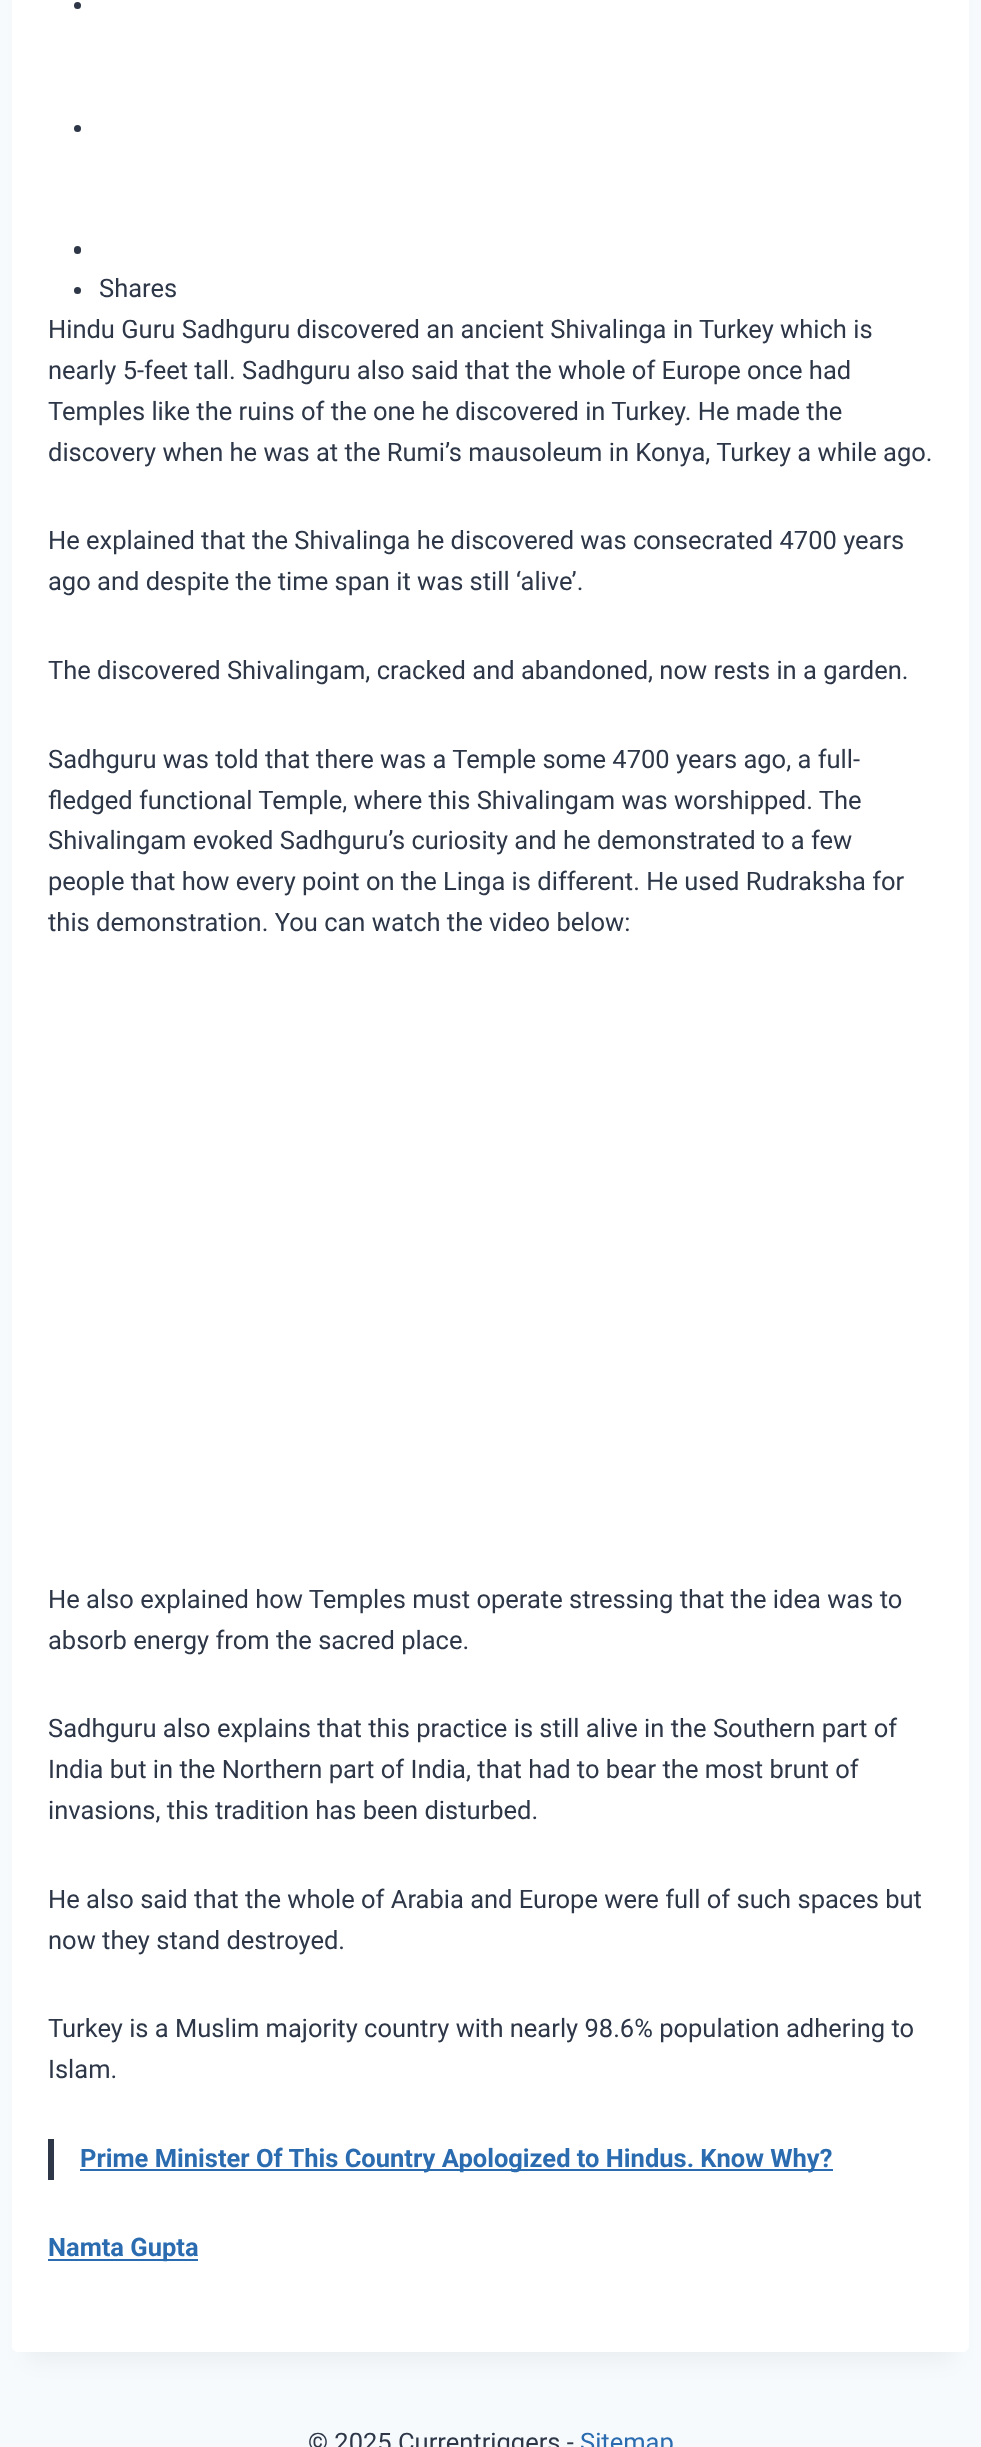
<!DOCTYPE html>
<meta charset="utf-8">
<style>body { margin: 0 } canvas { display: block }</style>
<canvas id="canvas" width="981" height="2447"></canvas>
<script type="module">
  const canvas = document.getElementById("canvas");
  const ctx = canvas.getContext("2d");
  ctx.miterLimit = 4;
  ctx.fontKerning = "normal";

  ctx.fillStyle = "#f7fafc";
  ctx.fillRect(0, 0, 981, 2447);
  ctx.fillStyle = "rgba(0, 0, 0, 0.05)";
  ctx.filter = "blur(11px)";
  ctx.beginPath();
  ctx.rect(27, -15, 927, 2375);
  ctx.fill();
  ctx.filter = "none";
  ctx.fillStyle = "#ffffff";
  ctx.beginPath();
  ctx.roundRect(12, -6, 957, 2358, 6);
  ctx.fill();
  ctx.fillStyle = "#2d3748";
  ctx.beginPath();
  ctx.arc(77.5, 5.5, 3.5, 0, Math.PI * 2);
  ctx.fill();
  ctx.beginPath();
  ctx.arc(77.5, 128.5, 3.5, 0, Math.PI * 2);
  ctx.fill();
  ctx.beginPath();
  ctx.roundRect(74, 246, 7, 8, 3.5);
  ctx.fill();
  ctx.beginPath();
  ctx.arc(77.5, 290.5, 3.5, 0, Math.PI * 2);
  ctx.fill();
  ctx.font = "25.5px Roboto";
  ctx.fillText("Shares", 99, 297);
  ctx.fillText("Hindu Guru Sadhguru discovered an ancient Shivalinga in Turkey which is", 48, 338);
  ctx.fillText("nearly 5-feet tall. Sadhguru also said that the whole of Europe once had", 48, 379);
  ctx.fillText("Temples like the ruins of the one he discovered in Turkey. He made the", 48, 420);
  ctx.fillText("discovery when he was at the Rumi’s mausoleum in Konya, Turkey a while ago.", 48, 461);
  ctx.fillText("He explained that the Shivalinga he discovered was consecrated 4700 years", 48, 549);
  ctx.fillText("ago and despite the time span it was still ‘alive’.", 48, 590);
  ctx.fillText("The discovered Shivalingam, cracked and abandoned, now rests in a garden.", 48, 679);
  ctx.fillText("Sadhguru was told that there was a Temple some 4700 years ago, a full-", 48, 768);
  ctx.fillText("fledged functional Temple, where this Shivalingam was worshipped. The", 48, 809);
  ctx.fillText("Shivalingam evoked Sadhguru’s curiosity and he demonstrated to a few", 48, 849);
  ctx.fillText("people that how every point on the Linga is different. He used Rudraksha for", 48, 890);
  ctx.fillText("this demonstration. You can watch the video below:", 48, 931);
  ctx.fillText("He also explained how Temples must operate stressing that the idea was to", 48, 1608);
  ctx.fillText("absorb energy from the sacred place.", 48, 1649);
  ctx.fillText("Sadhguru also explains that this practice is still alive in the Southern part of", 48, 1737);
  ctx.fillText("India but in the Northern part of India, that had to bear the most brunt of", 48, 1778);
  ctx.fillText("invasions, this tradition has been disturbed.", 48, 1819);
  ctx.fillText("He also said that the whole of Arabia and Europe were full of such spaces but", 48, 1908);
  ctx.fillText("now they stand destroyed.", 48, 1949);
  ctx.fillText("Turkey is a Muslim majority country with nearly 98.6% population adhering to", 48, 2037);
  ctx.fillText("Islam.", 48, 2078);
  ctx.fillRect(48, 2139, 6, 41);
  ctx.fillStyle = "#2b6cb0";
  ctx.fillRect(80, 2169, 753, 2);
  ctx.font = "bold 25.5px Roboto";
  ctx.fillText("Prime Minister Of This Country Apologized to Hindus. Know Why?", 80, 2167);
  ctx.fillRect(48, 2259, 150, 2);
  ctx.fillText("Namta Gupta", 48, 2256);
  ctx.font = "25.5px Roboto";
  ctx.fillStyle = "#2d3748";
  ctx.fillText("© 2025 Currentriggers -", 308, 2451);
  ctx.fillStyle = "#2b6cb0";
  ctx.fillText("Sitemap", 580, 2451);
</script>
